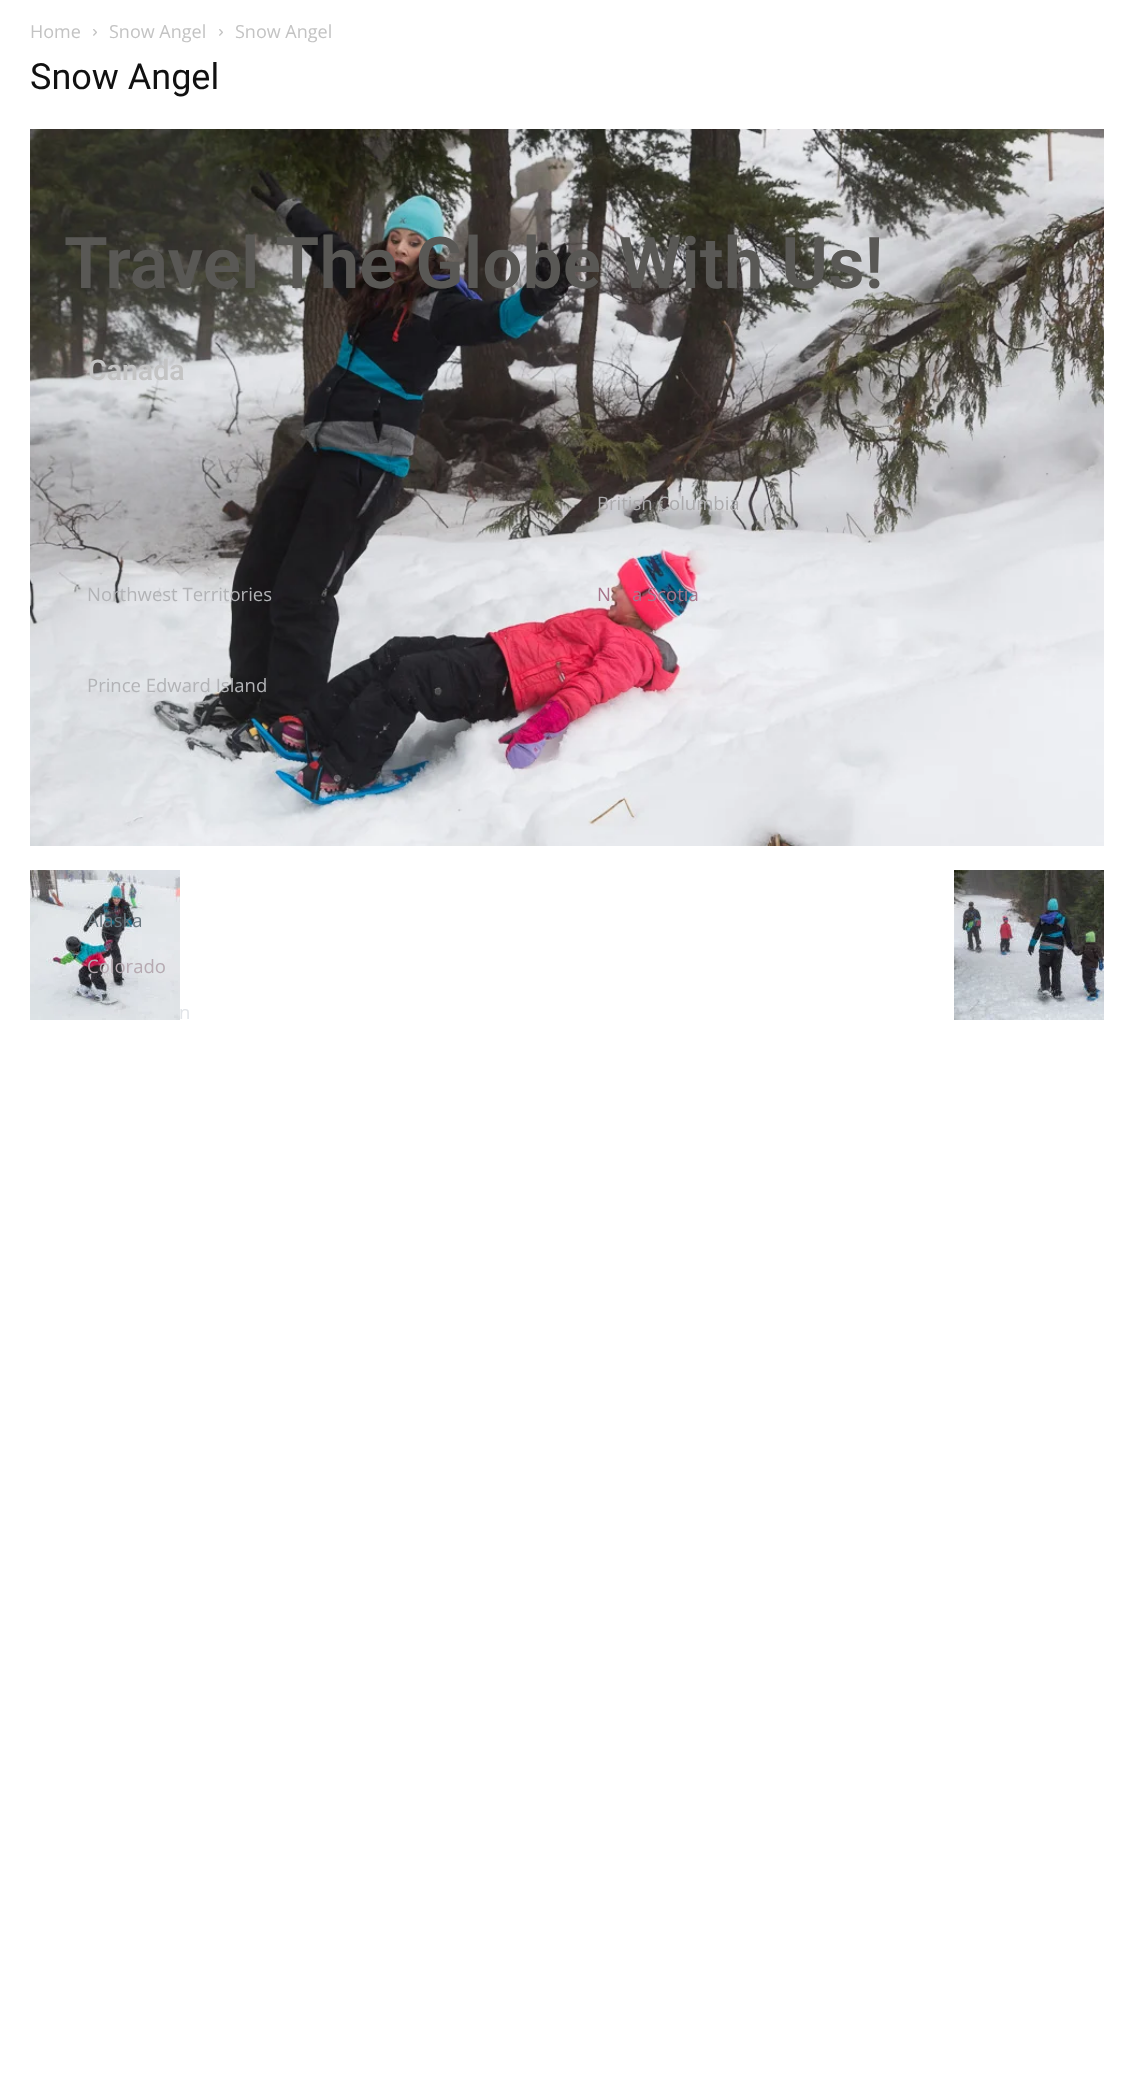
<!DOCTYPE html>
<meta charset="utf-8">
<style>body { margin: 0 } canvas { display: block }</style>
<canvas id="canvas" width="1133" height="2096"></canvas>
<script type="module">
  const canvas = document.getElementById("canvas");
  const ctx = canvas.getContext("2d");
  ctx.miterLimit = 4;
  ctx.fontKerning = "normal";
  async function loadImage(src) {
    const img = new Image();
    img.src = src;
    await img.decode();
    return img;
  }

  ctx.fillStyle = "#ffffff";
  ctx.fillRect(0, 0, 1133, 2096);
  ctx.font = "18px Open Sans";
  ctx.fillStyle = "#c3c3c3";
  ctx.fillText("Home", 30, 38);
  ctx.drawImage(await loadImage("img1.png"), 93, 29, 4, 7);
  ctx.fillText("Snow Angel", 109, 38);
  ctx.drawImage(await loadImage("img1.png"), 219, 29, 4, 7);
  ctx.fillText("Snow Angel", 235, 38);
  ctx.font = "36px Roboto";
  ctx.fillStyle = "#111111";
  ctx.fillText("Snow Angel", 30, 89);
  ctx.drawImage(await loadImage("img2.png"), 30, 129, 1074, 717);
  ctx.drawImage(await loadImage("img3.png"), 30, 870, 150, 150);
  ctx.drawImage(await loadImage("img4.png"), 954, 870, 150, 150);
  ctx.font = "600 71.25px Roboto";
  ctx.fillStyle = "#595855";
  ctx.fillText("Travel The Globe With Us!", 64, 288);
  ctx.font = "600 28.5px Roboto";
  ctx.fillStyle = "#c3c3c3";
  ctx.fillText("Canada", 88, 380);
  ctx.font = "18.5px Open Sans";
  ctx.fillStyle = "#abaaac";
  ctx.fillText("British Columbia", 597, 510);
  ctx.fillStyle = "#b2b3b6";
  ctx.fillText("Northwest Territories", 87, 601);
  ctx.fillStyle = "#a7778d";
  ctx.fillText("N", 597, 601);
  ctx.fillText("a Scotia", 632, 601);
  ctx.fillStyle = "#b2b3b6";
  ctx.fillText("Prince Edward Island", 87, 692);
  ctx.fillStyle = "#6b787f";
  ctx.fillText("Alaska", 87, 927);
  ctx.fillStyle = "#b6a9b1";
  ctx.fillText("Colorado", 87, 973);
  ctx.fillStyle = "#e1e4e8";
  ctx.fillText("n", 179, 1019);
</script>
